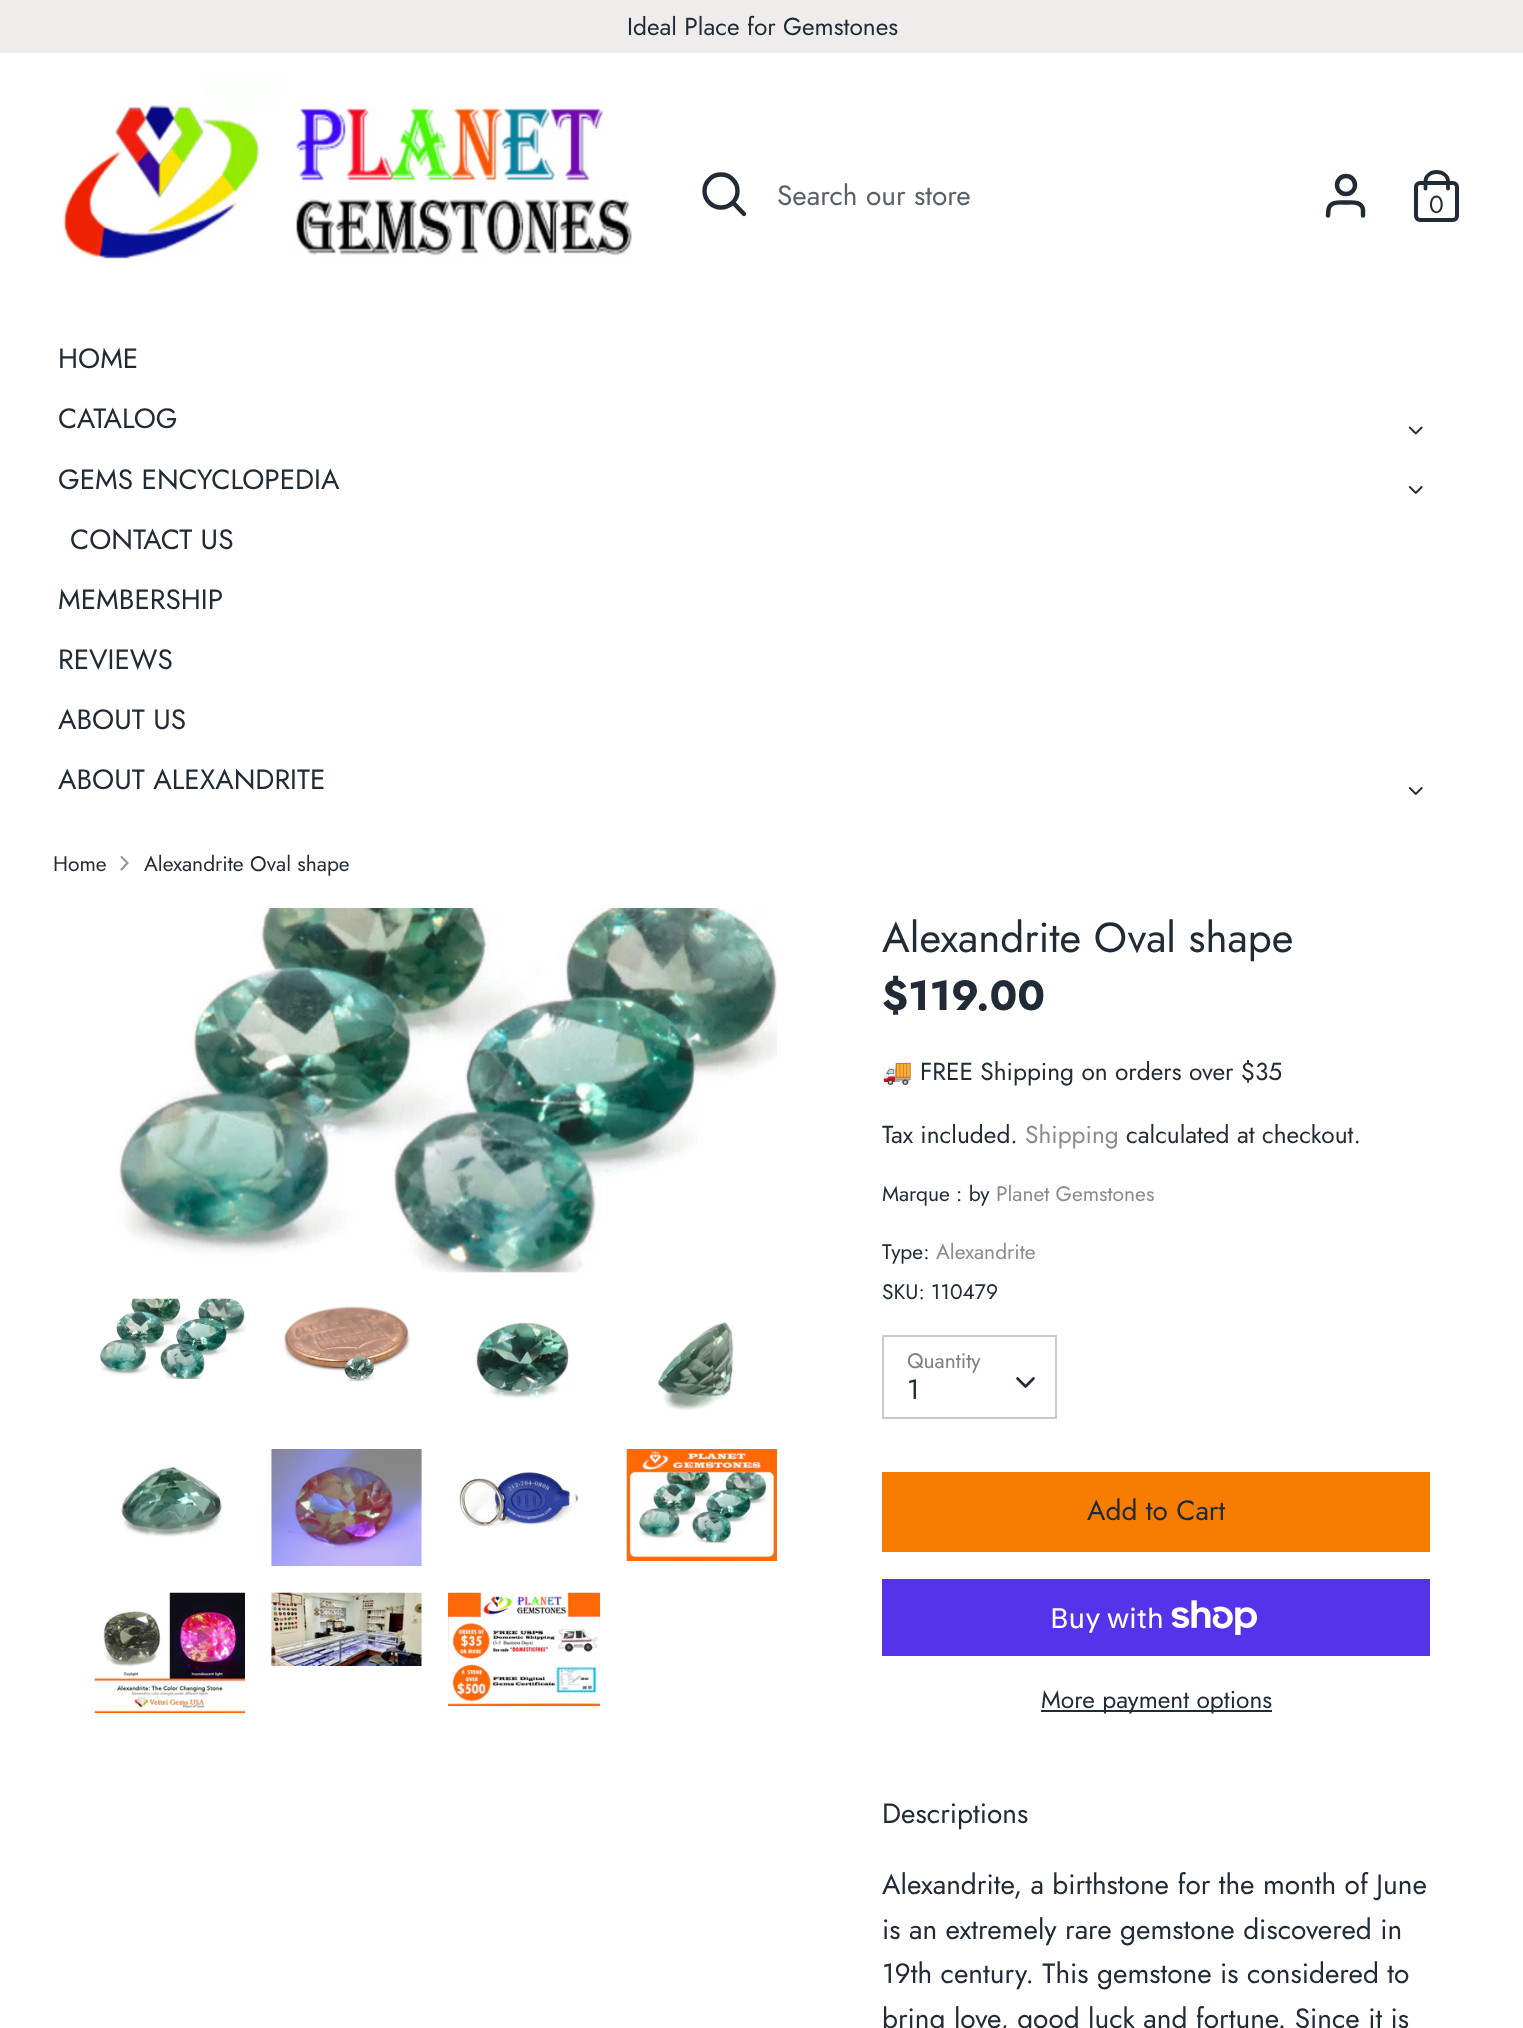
<!DOCTYPE html>
<meta charset="utf-8">
<style>body { margin: 0 } canvas { display: block }</style>
<canvas id="canvas" width="1523" height="2028"></canvas>
<script type="module">
  const canvas = document.getElementById("canvas");
  const ctx = canvas.getContext("2d");
  ctx.miterLimit = 4;
  ctx.fontKerning = "normal";
  async function loadImage(src) {
    const img = new Image();
    img.src = src;
    await img.decode();
    return img;
  }

  ctx.fillStyle = "#ffffff";
  ctx.fillRect(0, 0, 1523, 2028);
  ctx.fillStyle = "#eeedec";
  ctx.fillRect(0, 0, 1523, 53);
  ctx.font = "24.5px Jost";
  ctx.fillStyle = "#212b36";
  ctx.fillText("Ideal Place for Gemstones", 627, 35);
  ctx.drawImage(await loadImage("img1.png"), 60, 79, 572, 181);
  ctx.beginPath();
  ctx.arc(721, 191, 16.5, 0, Math.PI * 2);
  ctx.strokeStyle = "#212b36";
  ctx.lineWidth = 4.4;
  ctx.stroke();
  ctx.beginPath();
  ctx.moveTo(744, 214);
  ctx.lineTo(733, 202.5);
  ctx.lineCap = "round";
  ctx.stroke();
  ctx.font = "28px Jost";
  ctx.fillStyle = "#596068";
  ctx.fillText("Search our store", 777, 205);
  ctx.beginPath();
  ctx.moveTo(1363, 215.5);
  ctx.lineTo(1363, 209.5);
  ctx.bezierCurveTo(1361.5, 201, 1352, 202.5, 1346, 202.5);
  ctx.bezierCurveTo(1339.5, 202.5, 1330, 201, 1328.5, 209.5);
  ctx.lineTo(1328, 215.5);
  ctx.stroke();
  ctx.beginPath();
  ctx.arc(1346, 185, 9, 0, Math.PI * 2);
  ctx.stroke();
  ctx.beginPath();
  ctx.roundRect(1416, 183, 41, 37, 4);
  ctx.lineWidth = 4;
  ctx.stroke();
  ctx.beginPath();
  ctx.moveTo(1425.5, 188.5);
  ctx.lineTo(1425.5, 181);
  ctx.bezierCurveTo(1425.5, 176, 1430.5, 172, 1436.5, 172);
  ctx.bezierCurveTo(1443, 172, 1448, 176, 1448, 181);
  ctx.lineTo(1448, 188.5);
  ctx.lineWidth = 3.8;
  ctx.stroke();
  ctx.font = "24.5px Jost";
  ctx.fillStyle = "#212b36";
  ctx.fillText("0", 1429, 213);
  ctx.font = "28px Jost";
  ctx.fillText("HOME", 58, 368);
  ctx.fillText("CATALOG", 58, 428);
  ctx.drawImage(await loadImage("img2.png"), 1408, 426, 15, 9);
  ctx.fillText("GEMS ENCYCLOPEDIA", 58, 489);
  ctx.drawImage(await loadImage("img3.png"), 1408, 486, 15, 8);
  ctx.fillText("CONTACT US", 70, 549);
  ctx.fillText("MEMBERSHIP", 58, 609);
  ctx.fillText("REVIEWS", 58, 669);
  ctx.fillText("ABOUT US", 58, 729);
  ctx.fillText("ABOUT ALEXANDRITE", 58, 789);
  ctx.drawImage(await loadImage("img3.png"), 1408, 787, 15, 8);
  ctx.font = "21px Jost";
  ctx.fillText("Home", 53, 871);
  ctx.beginPath();
  ctx.moveTo(121.5, 869.5);
  ctx.lineTo(127.5, 863);
  ctx.lineTo(121.5, 857);
  ctx.strokeStyle = "#90959b";
  ctx.lineWidth = 2.1;
  ctx.stroke();
  ctx.fillText("Alexandrite Oval shape", 144, 871);
  ctx.drawImage(await loadImage("img4.png"), 115, 908, 662, 365);
  ctx.drawImage(await loadImage("img5.png"), 100, 1298, 145, 81);
  ctx.drawImage(await loadImage("img6.png"), 283, 1306, 128, 76);
  ctx.drawImage(await loadImage("img7.png"), 475, 1322, 95, 77);
  ctx.drawImage(await loadImage("img8.png"), 657, 1322, 77, 89);
  ctx.drawImage(await loadImage("img9.png"), 121, 1466, 101, 71);
  ctx.drawImage(await loadImage("img10.png"), 271, 1449, 151, 118);
  ctx.drawImage(await loadImage("img11.png"), 458, 1472, 122, 56);
  ctx.drawImage(await loadImage("img12.png"), 626, 1449, 151, 112);
  ctx.drawImage(await loadImage("img13.png"), 94, 1592, 151, 122);
  ctx.drawImage(await loadImage("img14.png"), 271, 1592, 151, 74);
  ctx.drawImage(await loadImage("img15.png"), 448, 1592, 153, 115);
  ctx.font = "42px Jost";
  ctx.fillText("Alexandrite Oval shape", 882, 952);
  ctx.font = "bold 42px Jost";
  ctx.fillText("$119.00", 882, 1010);
  ctx.font = "24.5px Noto Color Emoji";
  ctx.fillText("🚚", 882, 1080);
  ctx.font = "24.5px Jost";
  ctx.fillText("FREE Shipping on orders over $35", 920, 1080);
  ctx.fillText("Tax included.", 882, 1143);
  ctx.fillStyle = "#8b8b8b";
  ctx.fillText("Shipping", 1025, 1143);
  ctx.fillStyle = "#212b36";
  ctx.fillText("calculated at checkout.", 1126, 1143);
  ctx.font = "21px Jost";
  ctx.fillText("Marque : by", 882, 1201);
  ctx.fillStyle = "#8b8b8b";
  ctx.fillText("Planet Gemstones", 996, 1201);
  ctx.fillStyle = "#212b36";
  ctx.fillText("Type:", 882, 1259);
  ctx.fillStyle = "#8b8b8b";
  ctx.fillText("Alexandrite", 936, 1259);
  ctx.fillStyle = "#212b36";
  ctx.fillText("SKU: 110479", 882, 1299);
  ctx.strokeStyle = "#c7cacc";
  ctx.lineWidth = 2;
  ctx.strokeRect(883, 1336, 173, 82);
  ctx.fillStyle = "#7a8086";
  ctx.fillText("Quantity", 907, 1368);
  ctx.font = "28px Jost";
  ctx.fillStyle = "#212b36";
  ctx.fillText("1", 907, 1399);
  ctx.beginPath();
  ctx.moveTo(1017.5, 1378.5);
  ctx.lineTo(1025.5, 1386.5);
  ctx.lineTo(1033.5, 1378.5);
  ctx.strokeStyle = "#212b36";
  ctx.lineWidth = 2.6;
  ctx.lineJoin = "round";
  ctx.stroke();
  ctx.strokeStyle = "#f77d00";
  ctx.lineWidth = 2;
  ctx.lineJoin = "miter";
  ctx.strokeRect(883, 1473, 546, 78);
  ctx.fillStyle = "#f77d00";
  ctx.fillRect(884, 1474, 544, 76);
  ctx.fillStyle = "#212b36";
  ctx.fillText("Add to Cart", 1087, 1520);
  ctx.fillStyle = "#5433eb";
  ctx.fillRect(882, 1579, 548, 77);
  ctx.font = "28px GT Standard";
  ctx.fillStyle = "#ffffff";
  ctx.fillText("Buy with", 1050, 1628);
  ctx.drawImage(await loadImage("img16.png"), 1171, 1600, 86, 35);
  ctx.fillStyle = "#212b36";
  ctx.fillRect(1041, 1710, 231, 2);
  ctx.font = "24.5px Jost";
  ctx.fillText("More payment options", 1041, 1708);
  ctx.font = "28px Jost";
  ctx.fillText("Descriptions", 882, 1823);
  ctx.fillText("Alexandrite, a birthstone for the month of June", 882, 1894);
  ctx.fillText("is an extremely rare gemstone discovered in", 882, 1939);
  ctx.fillText("19th century. This gemstone is considered to", 882, 1983);
  ctx.fillText("bring love, good luck and fortune. Since it is", 882, 2028);
</script>
